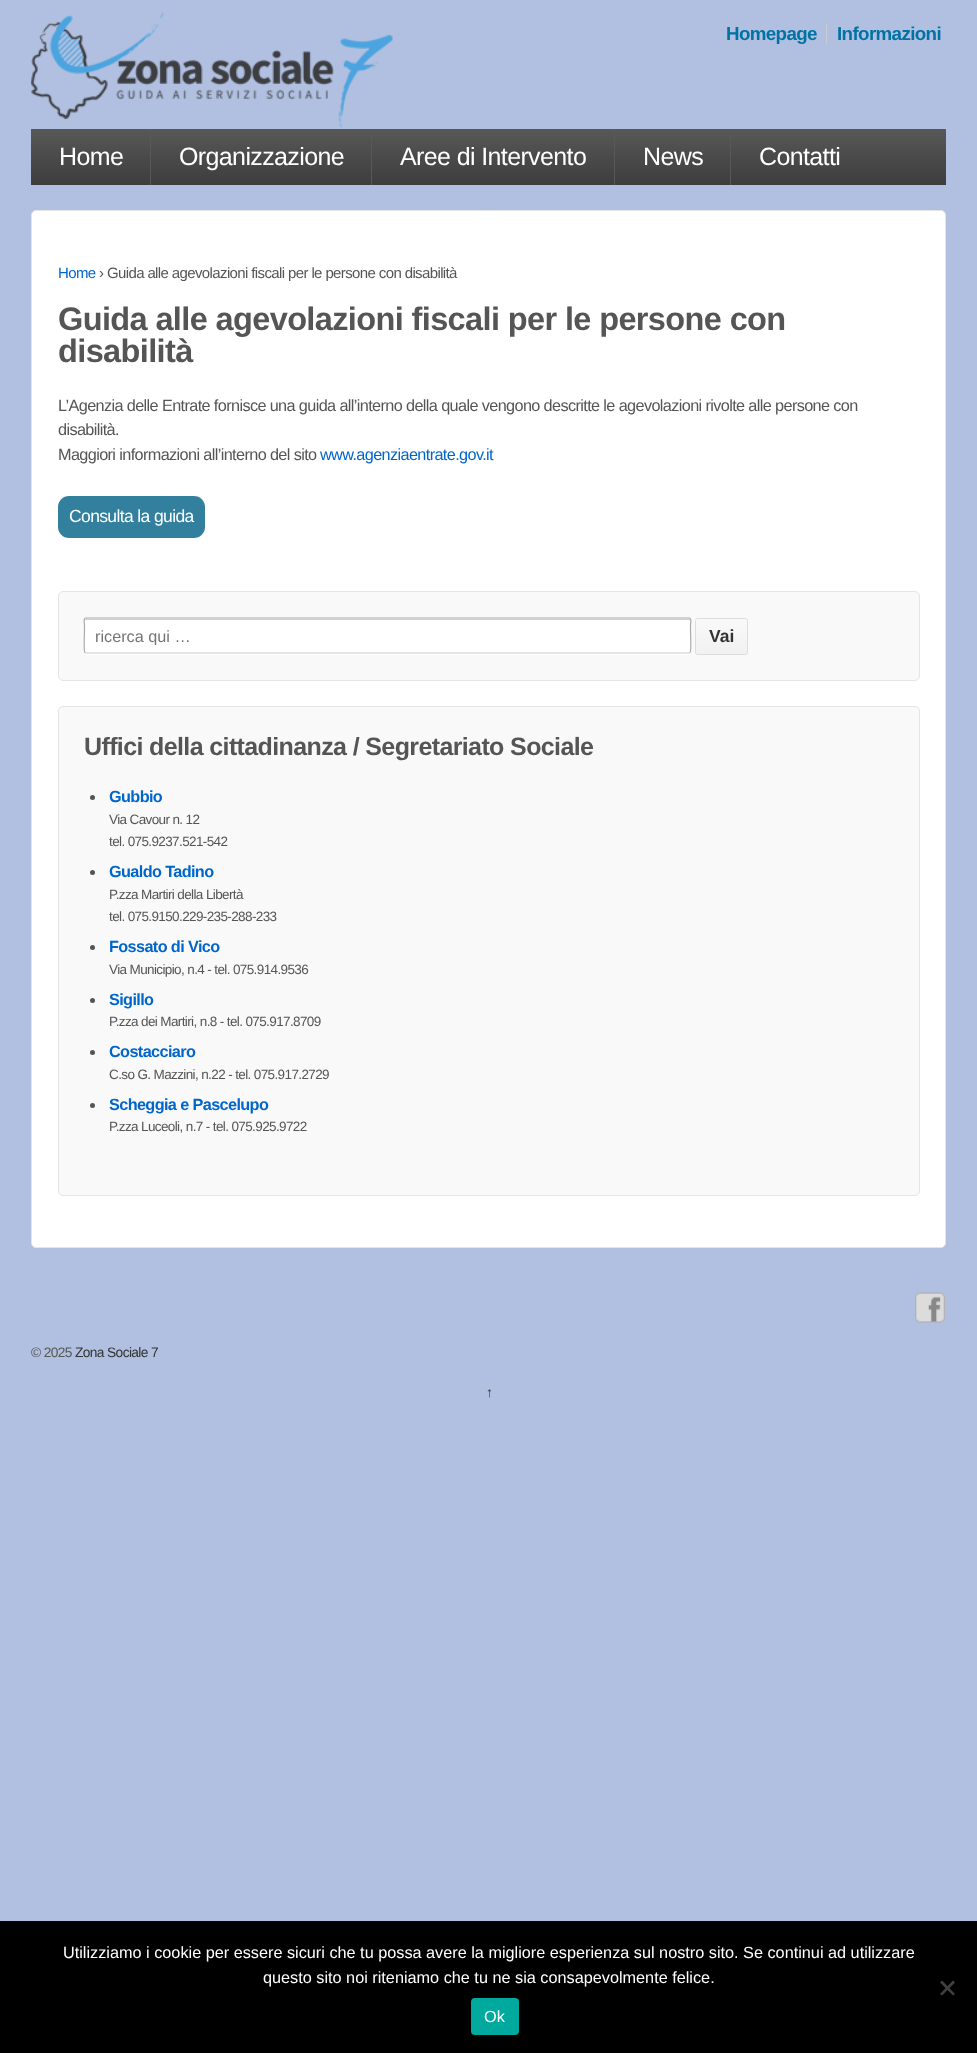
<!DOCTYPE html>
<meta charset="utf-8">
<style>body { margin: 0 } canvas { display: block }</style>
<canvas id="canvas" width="977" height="2053"></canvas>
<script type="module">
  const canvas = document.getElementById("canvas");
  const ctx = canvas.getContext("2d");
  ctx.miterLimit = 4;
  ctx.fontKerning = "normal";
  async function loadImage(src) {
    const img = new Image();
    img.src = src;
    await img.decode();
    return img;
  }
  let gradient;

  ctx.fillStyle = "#b1c0e0";
  ctx.fillRect(0, 0, 977, 2053);
  ctx.drawImage(await loadImage("img1.png"), 31, 12, 362, 117);
  ctx.letterSpacing = "-0.62px";
  ctx.font = "bold 18.75px Liberation Sans";
  ctx.fillStyle = "#0073a4";
  ctx.fillText("Homepage", 726, 40);
  ctx.fillText("Informazioni", 837, 40);
  ctx.fillStyle = "#cccccc";
  ctx.fillRect(826, 23, 1, 21);
  gradient = ctx.createLinearGradient(489, 129, 489, 185);
  gradient.addColorStop(0, "#585858");
  gradient.addColorStop(1, "#3d3d3d");
  ctx.fillStyle = gradient;
  ctx.fillRect(31, 129, 915, 56);
  ctx.font = "25px Liberation Sans";
  ctx.fillStyle = "#ffffff";
  ctx.fillText("Home", 59, 165);
  ctx.fillStyle = "#585858";
  ctx.fillRect(150, 129, 1, 56);
  ctx.fillStyle = "#ffffff";
  ctx.fillText("Organizzazione", 179, 165);
  ctx.fillStyle = "#585858";
  ctx.fillRect(371, 129, 1, 56);
  ctx.fillStyle = "#ffffff";
  ctx.fillText("Aree di Intervento", 400, 165);
  ctx.fillStyle = "#585858";
  ctx.fillRect(614, 129, 1, 56);
  ctx.fillStyle = "#ffffff";
  ctx.fillText("News", 643, 165);
  ctx.fillStyle = "#585858";
  ctx.fillRect(730, 129, 1, 56);
  ctx.fillStyle = "#ffffff";
  ctx.fillText("Contatti", 759, 165);
  ctx.beginPath();
  ctx.roundRect(31.5, 210.5, 914, 1037, 4.5);
  ctx.fill();
  ctx.strokeStyle = "#e5e5e5";
  ctx.stroke();
  ctx.font = "15px Liberation Sans";
  ctx.fillStyle = "#0066cc";
  ctx.fillText("Home", 58, 278);
  ctx.fillStyle = "#555555";
  ctx.fillText("› Guida alle agevolazioni fiscali per le persone con disabilità", 99, 278);
  ctx.font = "bold 32.5px Liberation Sans";
  ctx.fillText("Guida alle agevolazioni fiscali per le persone con", 58, 330);
  ctx.fillText("disabilità", 58, 362);
  ctx.font = "16.25px Liberation Sans";
  ctx.fillText("L’Agenzia delle Entrate fornisce una guida all’interno della quale vengono descritte le agevolazioni rivolte alle persone con", 58, 411);
  ctx.fillText("disabilità.", 58, 435);
  ctx.fillText("Maggiori informazioni all’interno del sito", 58, 460);
  ctx.fillStyle = "#0066cc";
  ctx.fillText("www.agenziaentrate.gov.it", 320, 460);
  ctx.fillStyle = "#33809e";
  ctx.beginPath();
  ctx.roundRect(58, 496, 147, 42, 11);
  ctx.fill();
  ctx.font = "17.5px Liberation Sans";
  ctx.fillStyle = "#ffffff";
  ctx.fillText("Consulta la guida", 69, 522);
  ctx.fillStyle = "#f9f9f9";
  ctx.beginPath();
  ctx.roundRect(58.5, 591.5, 861, 89, 4.5);
  ctx.fill();
  ctx.stroke();
  ctx.fillStyle = "#ffffff";
  ctx.beginPath();
  ctx.moveTo(84, 652);
  ctx.bezierCurveTo(84, 654, 85, 655, 86, 655);
  ctx.lineTo(688, 655);
  ctx.bezierCurveTo(690, 655, 691, 654, 691, 652);
  ctx.bezierCurveTo(691, 653, 690, 654, 689, 654);
  ctx.lineTo(86, 654);
  ctx.bezierCurveTo(85, 654, 84, 653, 84, 652);
  ctx.closePath();
  ctx.fill();
  ctx.beginPath();
  ctx.roundRect(84, 618, 607, 36, 2.5);
  ctx.fill();
  ctx.fillStyle = "#cccccc";
  ctx.beginPath();
  ctx.moveTo(86, 620);
  ctx.lineTo(689, 620);
  ctx.bezierCurveTo(690, 620, 690, 621, 690, 624);
  ctx.bezierCurveTo(690, 623, 691, 619, 689, 619);
  ctx.lineTo(86, 619);
  ctx.lineTo(85, 621);
  ctx.closePath();
  ctx.fill();
  ctx.beginPath();
  ctx.moveTo(690, 652.5);
  ctx.lineTo(689, 653);
  ctx.lineTo(86, 653);
  ctx.lineTo(85, 652.5);
  ctx.strokeStyle = "#cccccc";
  ctx.lineWidth = 1.2;
  ctx.stroke();
  ctx.beginPath();
  ctx.moveTo(85, 652.5);
  ctx.bezierCurveTo(83.5, 651, 84.5, 633.5, 84.5, 630.5);
  ctx.lineTo(84.5, 625);
  ctx.bezierCurveTo(84.5, 624.5, 83, 618, 86, 618);
  ctx.lineTo(689, 618);
  ctx.bezierCurveTo(692, 618, 690.5, 624.5, 690.5, 625);
  ctx.lineTo(690.5, 630.5);
  ctx.bezierCurveTo(690.5, 633.5, 691.5, 651, 690, 652.5);
  ctx.strokeStyle = "#aaaaaa";
  ctx.stroke();
  ctx.save();
  ctx.beginPath();
  ctx.rect(95, 626, 585, 19);
  ctx.clip();
  ctx.letterSpacing = "0px";
  ctx.font = "16.25px Liberation Sans";
  ctx.fillStyle = "#757575";
  ctx.fillText("ricerca qui …", 95, 642);
  ctx.restore();
  ctx.save();
  ctx.beginPath();
  ctx.roundRect(695, 618, 53, 37, 2.5);
  ctx.clip();
  gradient = ctx.createLinearGradient(721, 619, 721, 654);
  gradient.addColorStop(0, "#f9f9f9");
  gradient.addColorStop(1, "#f1f1f1");
  ctx.fillStyle = gradient;
  ctx.fillRect(695, 619, 53, 35);
  ctx.restore();
  ctx.beginPath();
  ctx.roundRect(695.5, 618.5, 52, 36, 2);
  ctx.strokeStyle = "#dddddd";
  ctx.lineWidth = 1;
  ctx.stroke();
  ctx.letterSpacing = "0px";
  ctx.font = "bold 17.5px Liberation Sans";
  ctx.fillStyle = "#333333";
  ctx.fillText("Vai", 709, 642);
  ctx.fillStyle = "#f9f9f9";
  ctx.beginPath();
  ctx.roundRect(58.5, 706.5, 861, 489, 4.5);
  ctx.fill();
  ctx.strokeStyle = "#e5e5e5";
  ctx.stroke();
  ctx.letterSpacing = "-0.62px";
  ctx.font = "bold 25px Liberation Sans";
  ctx.fillStyle = "#555555";
  ctx.fillText("Uffici della cittadinanza / Segretariato Sociale", 84, 755);
  ctx.beginPath();
  ctx.arc(92.5, 797.5, 2.5, 0, Math.PI * 2);
  ctx.fill();
  ctx.font = "bold 16.25px Liberation Sans";
  ctx.fillStyle = "#0066cc";
  ctx.fillText("Gubbio", 109, 802);
  ctx.font = "13.5px Liberation Sans";
  ctx.fillStyle = "#555555";
  ctx.fillText("Via Cavour n. 12", 109, 824);
  ctx.fillText("tel. 075.9237.521-542", 109, 846);
  ctx.beginPath();
  ctx.arc(92.5, 872.5, 2.5, 0, Math.PI * 2);
  ctx.fill();
  ctx.font = "bold 16.25px Liberation Sans";
  ctx.fillStyle = "#0066cc";
  ctx.fillText("Gualdo Tadino", 109, 877);
  ctx.font = "13.5px Liberation Sans";
  ctx.fillStyle = "#555555";
  ctx.fillText("P.zza Martiri della Libertà", 109, 899);
  ctx.fillText("tel. 075.9150.229-235-288-233", 109, 921);
  ctx.beginPath();
  ctx.arc(92.5, 947.5, 2.5, 0, Math.PI * 2);
  ctx.fill();
  ctx.font = "bold 16.25px Liberation Sans";
  ctx.fillStyle = "#0066cc";
  ctx.fillText("Fossato di Vico", 109, 952);
  ctx.font = "13.5px Liberation Sans";
  ctx.fillStyle = "#555555";
  ctx.fillText("Via Municipio, n.4 - tel. 075.914.9536", 109, 974);
  ctx.beginPath();
  ctx.arc(92.5, 1000.5, 2.5, 0, Math.PI * 2);
  ctx.fill();
  ctx.font = "bold 16.25px Liberation Sans";
  ctx.fillStyle = "#0066cc";
  ctx.fillText("Sigillo", 109, 1005);
  ctx.font = "13.5px Liberation Sans";
  ctx.fillStyle = "#555555";
  ctx.fillText("P.zza dei Martiri, n.8 - tel. 075.917.8709", 109, 1026);
  ctx.beginPath();
  ctx.arc(92.5, 1052.5, 2.5, 0, Math.PI * 2);
  ctx.fill();
  ctx.font = "bold 16.25px Liberation Sans";
  ctx.fillStyle = "#0066cc";
  ctx.fillText("Costacciaro", 109, 1057);
  ctx.font = "13.5px Liberation Sans";
  ctx.fillStyle = "#555555";
  ctx.fillText("C.so G. Mazzini, n.22 - tel. 075.917.2729", 109, 1079);
  ctx.beginPath();
  ctx.arc(92.5, 1105.5, 2.5, 0, Math.PI * 2);
  ctx.fill();
  ctx.font = "bold 16.25px Liberation Sans";
  ctx.fillStyle = "#0066cc";
  ctx.fillText("Scheggia e Pascelupo", 109, 1110);
  ctx.font = "13.5px Liberation Sans";
  ctx.fillStyle = "#555555";
  ctx.fillText("P.zza Luceoli, n.7 - tel. 075.925.9722", 109, 1131);
  ctx.drawImage(await loadImage("img2.png"), 915, 1292, 30, 31);
  ctx.font = "13.75px Liberation Sans";
  ctx.fillText("© 2025", 31, 1357);
  ctx.fillStyle = "#333333";
  ctx.fillText("Zona Sociale 7", 75, 1357);
  ctx.fillText("↑", 486, 1397);
  ctx.fillStyle = "#000000";
  ctx.fillRect(0, 1921, 977, 132);
  ctx.letterSpacing = "0px";
  ctx.font = "16.25px Liberation Sans";
  ctx.fillStyle = "#ffffff";
  ctx.fillText("Utilizziamo i cookie per essere sicuri che tu possa avere la migliore esperienza sul nostro sito. Se continui ad utilizzare", 63, 1958);
  ctx.fillText("questo sito noi riteniamo che tu ne sia consapevolmente felice.", 263, 1983);
  ctx.fillStyle = "#404040";
  ctx.beginPath();
  ctx.moveTo(953, 1980.5);
  ctx.lineTo(955, 1982.5);
  ctx.lineTo(942, 1995.5);
  ctx.lineTo(940, 1994);
  ctx.closePath();
  ctx.fill();
  ctx.beginPath();
  ctx.moveTo(940, 1982.5);
  ctx.lineTo(942, 1980.5);
  ctx.lineTo(955, 1994);
  ctx.lineTo(953, 1995.5);
  ctx.closePath();
  ctx.fill();
  ctx.fillStyle = "#00a99d";
  ctx.beginPath();
  ctx.roundRect(471, 1998, 48, 37, 4);
  ctx.fill();
  ctx.fillStyle = "#ffffff";
  ctx.fillText("Ok", 484, 2022);
</script>
